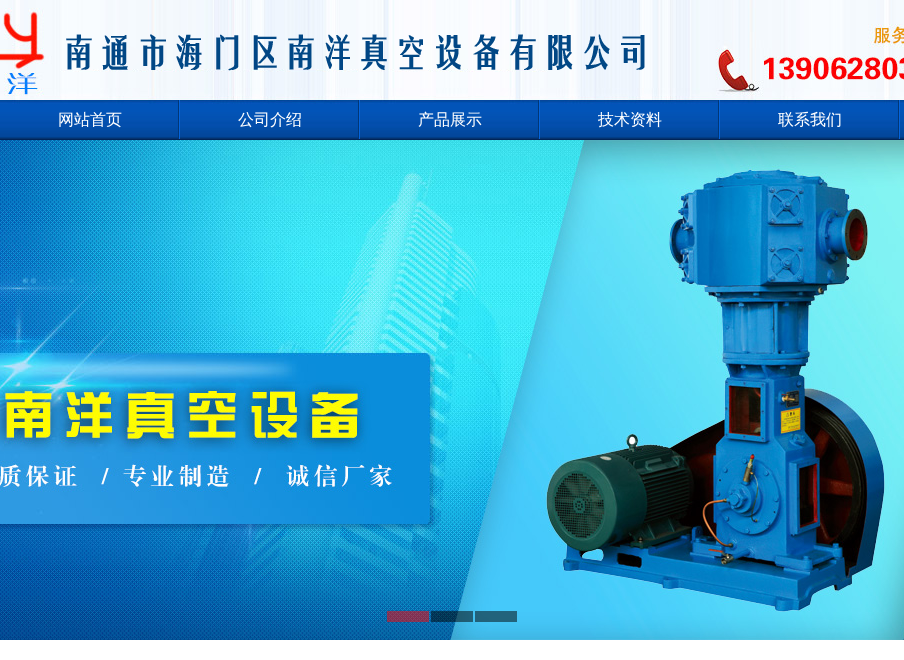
<!DOCTYPE html>
<meta charset="utf-8">
<style>body { margin: 0 } canvas { display: block }</style>
<canvas id="canvas" width="904" height="660"></canvas>
<script type="module">
  const canvas = document.getElementById("canvas");
  const ctx = canvas.getContext("2d");
  ctx.miterLimit = 4;
  ctx.fontKerning = "normal";
  async function loadImage(src) {
    const img = new Image();
    img.src = src;
    await img.decode();
    return img;
  }

  ctx.fillStyle = "#ffffff";
  ctx.fillRect(0, 0, 904, 660);
  ctx.drawImage(await loadImage("img1.png"), 0, 0, 904, 140);
  ctx.drawImage(await loadImage("img2.png"), 178, 100, 2, 39);
  ctx.font = "500 16px WenQuanYi Zen Hei";
  ctx.fillText("网站首页", 58, 125);
  ctx.drawImage(await loadImage("img2.png"), 358, 100, 2, 39);
  ctx.fillText("公司介绍", 238, 125);
  ctx.drawImage(await loadImage("img2.png"), 538, 100, 2, 39);
  ctx.fillText("产品展示", 418, 125);
  ctx.drawImage(await loadImage("img2.png"), 718, 100, 2, 39);
  ctx.fillText("技术资料", 598, 125);
  ctx.drawImage(await loadImage("img2.png"), 898, 100, 2, 39);
  ctx.fillText("联系我们", 778, 125);
  ctx.drawImage(await loadImage("img3.png"), 0, 140, 904, 500);
  ctx.fillStyle = "rgba(255, 0, 0, 0.5)";
  ctx.fillRect(387, 611, 42, 11);
  ctx.fillStyle = "rgba(0, 0, 0, 0.5)";
  ctx.fillRect(431, 611, 42, 11);
  ctx.fillRect(475, 611, 42, 11);
</script>
